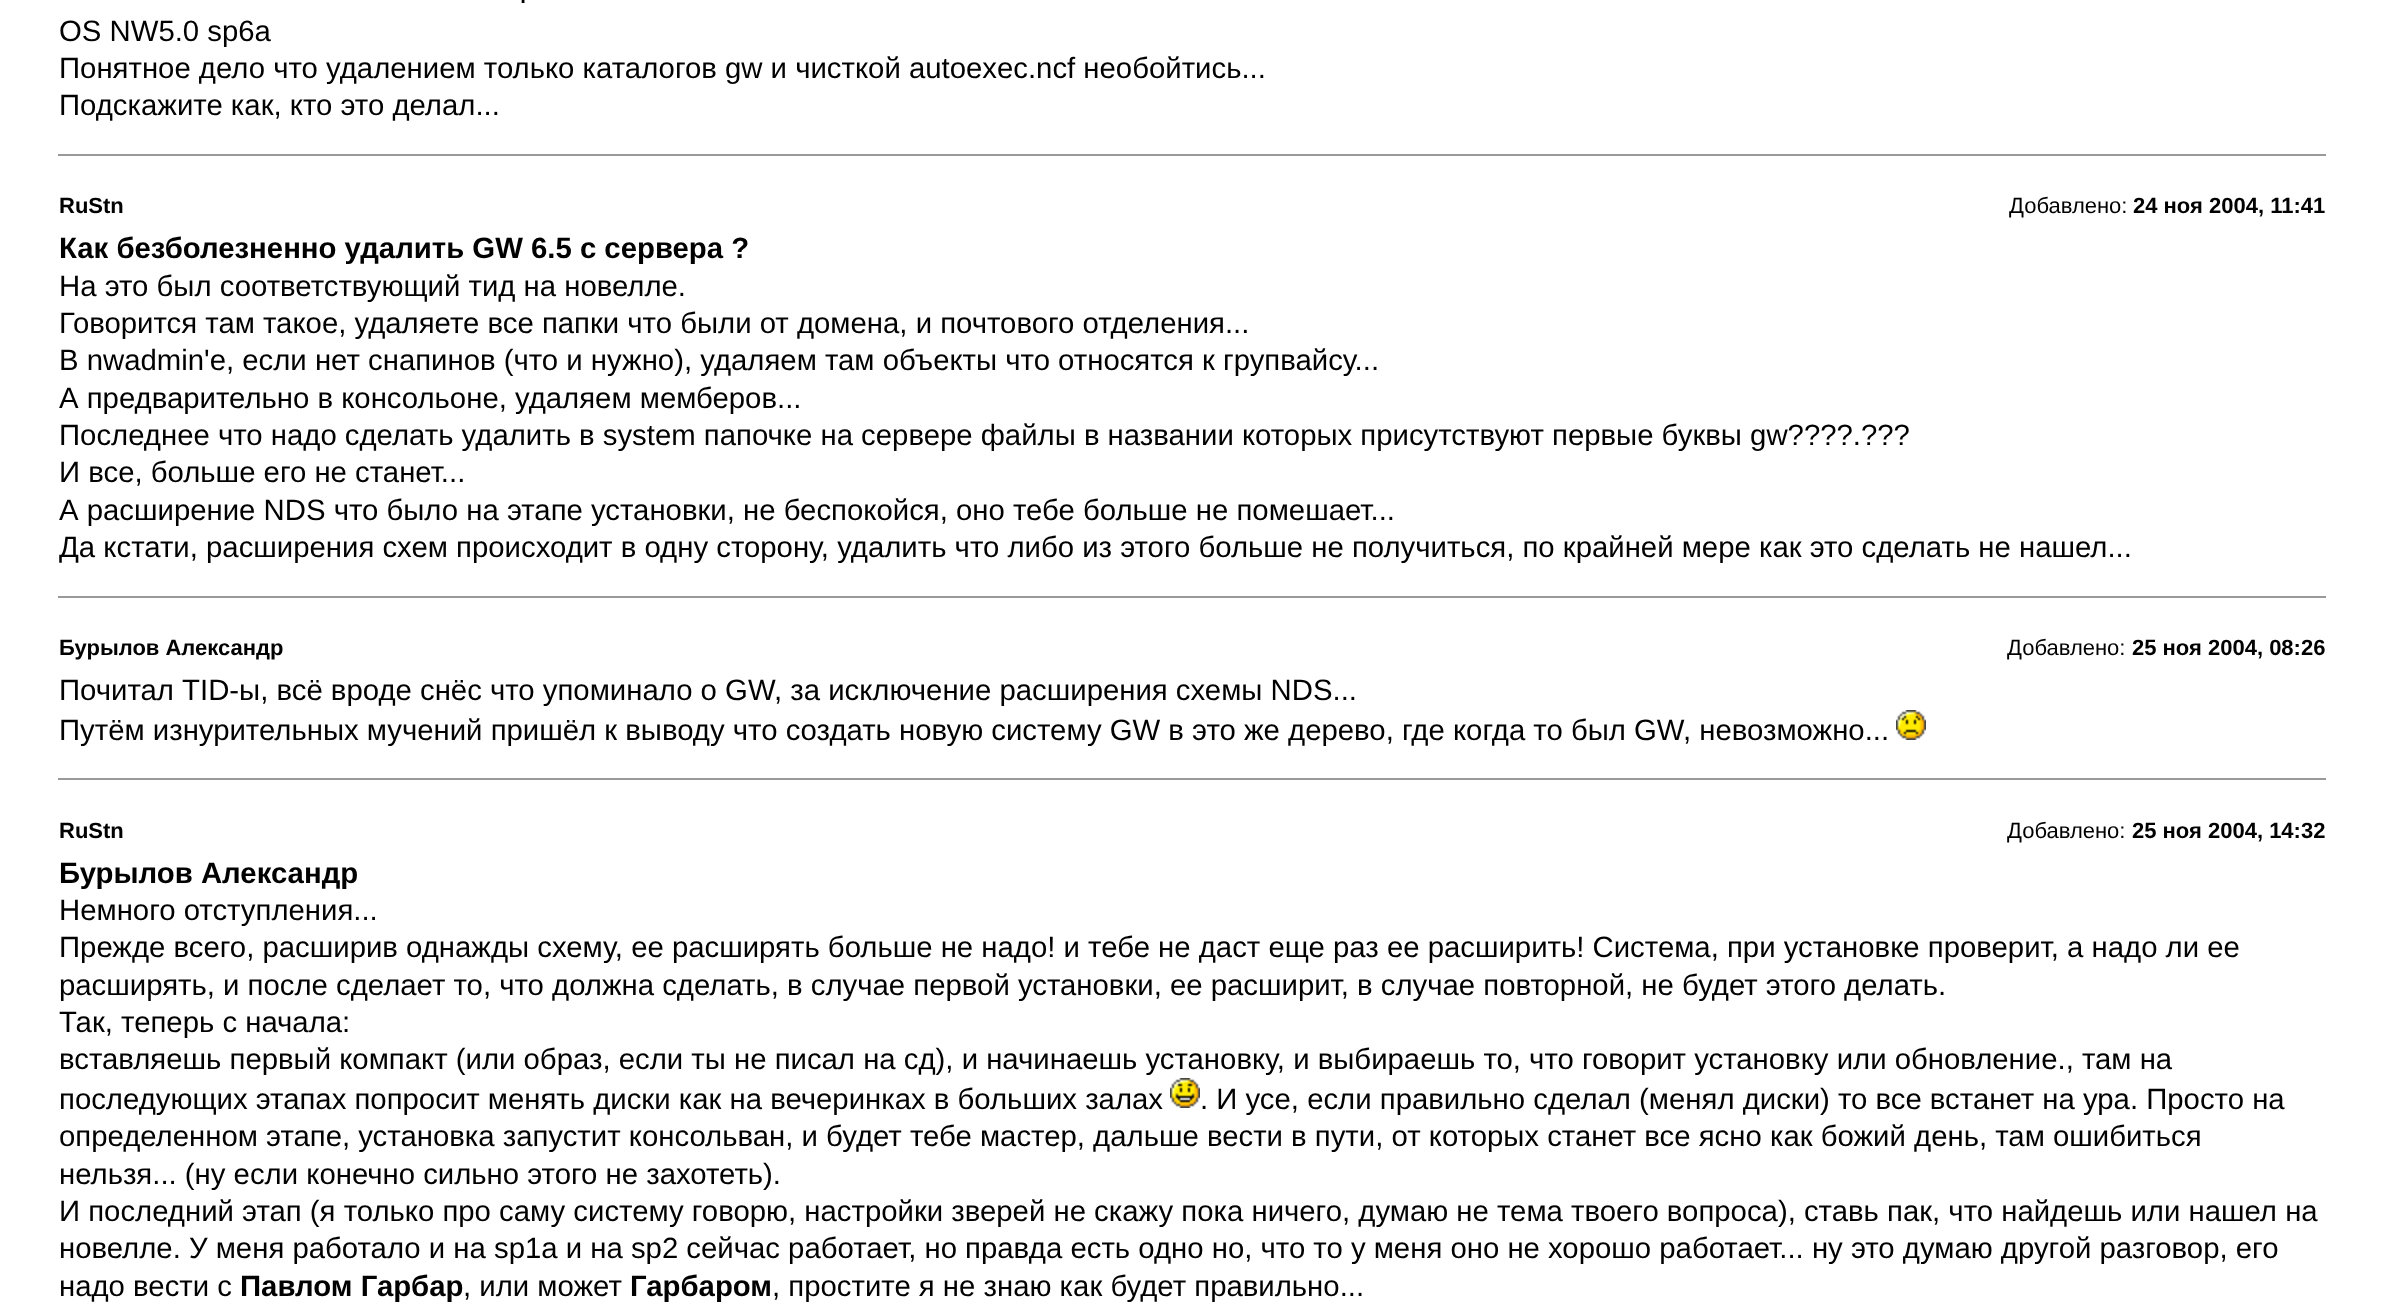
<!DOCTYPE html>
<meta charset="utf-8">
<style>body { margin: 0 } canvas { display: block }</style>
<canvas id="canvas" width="2384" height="1311"></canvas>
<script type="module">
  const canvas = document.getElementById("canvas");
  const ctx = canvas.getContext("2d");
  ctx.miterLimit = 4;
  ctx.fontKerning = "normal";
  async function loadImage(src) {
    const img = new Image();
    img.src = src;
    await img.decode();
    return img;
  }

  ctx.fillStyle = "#ffffff";
  ctx.fillRect(0, 0, 2384, 1311);
  ctx.font = "29.33px Liberation Sans";
  ctx.fillStyle = "#000000";
  ctx.fillText(".", 519, 3);
  ctx.fillText("OS NW5.0 sp6a", 59, 41);
  ctx.fillText("Понятное дело что удалением только каталогов gw и чисткой autoexec.ncf необойтись...", 59, 78);
  ctx.fillText("Подскажите как, кто это делал...", 59, 115);
  ctx.fillStyle = "#999999";
  ctx.fillRect(58, 154, 2268, 2);
  ctx.font = "bold 22px Liberation Sans";
  ctx.fillStyle = "#000000";
  ctx.fillText("RuStn", 59, 213);
  ctx.font = "22px Liberation Sans";
  ctx.fillText("Добавлено:", 2009, 213);
  ctx.font = "bold 22px Liberation Sans";
  ctx.fillText("24 ноя 2004, 11:41", 2133, 213);
  ctx.font = "bold 29.33px Liberation Sans";
  ctx.fillText("Как безболезненно удалить GW 6.5 с сервера ?", 59, 258);
  ctx.font = "29.33px Liberation Sans";
  ctx.fillText("На это был соответствующий тид на новелле.", 59, 296);
  ctx.fillText("Говорится там такое, удаляете все папки что были от домена, и почтового отделения...", 59, 333);
  ctx.fillText("В nwadmin'е, если нет снапинов (что и нужно), удаляем там объекты что относятся к групвайсу...", 59, 370);
  ctx.fillText("А предварительно в консольоне, удаляем мемберов...", 59, 408);
  ctx.fillText("Последнее что надо сделать удалить в system папочке на сервере файлы в названии которых присутствуют первые буквы gw????.???", 59, 445);
  ctx.fillText("И все, больше его не станет...", 59, 482);
  ctx.fillText("А расширение NDS что было на этапе установки, не беспокойся, оно тебе больше не помешает...", 59, 520);
  ctx.fillText("Да кстати, расширения схем происходит в одну сторону, удалить что либо из этого больше не получиться, по крайней мере как это сделать не нашел...", 59, 557);
  ctx.fillStyle = "#999999";
  ctx.fillRect(58, 596, 2268, 2);
  ctx.font = "bold 22px Liberation Sans";
  ctx.fillStyle = "#000000";
  ctx.fillText("Бурылов Александр", 59, 655);
  ctx.font = "22px Liberation Sans";
  ctx.fillText("Добавлено:", 2007, 655);
  ctx.font = "bold 22px Liberation Sans";
  ctx.fillText("25 ноя 2004, 08:26", 2132, 655);
  ctx.font = "29.33px Liberation Sans";
  ctx.fillText("Почитал TID-ы, всё вроде снёс что упоминало о GW, за исключение расширения схемы NDS...", 59, 700);
  ctx.fillText("Путём изнурительных мучений пришёл к выводу что создать новую систему GW в это же дерево, где когда то был GW, невозможно...", 59, 740);
  ctx.drawImage(await loadImage("img1.png"), 1896, 710, 30, 30);
  ctx.fillStyle = "#999999";
  ctx.fillRect(58, 778, 2268, 2);
  ctx.font = "bold 22px Liberation Sans";
  ctx.fillStyle = "#000000";
  ctx.fillText("RuStn", 59, 838);
  ctx.font = "22px Liberation Sans";
  ctx.fillText("Добавлено:", 2007, 838);
  ctx.font = "bold 22px Liberation Sans";
  ctx.fillText("25 ноя 2004, 14:32", 2132, 838);
  ctx.font = "bold 29.33px Liberation Sans";
  ctx.fillText("Бурылов Александр", 59, 883);
  ctx.font = "29.33px Liberation Sans";
  ctx.fillText("Немного отступления...", 59, 920);
  ctx.fillText("Прежде всего, расширив однажды схему, ее расширять больше не надо! и тебе не даст еще раз ее расширить! Система, при установке проверит, а надо ли ее", 59, 957);
  ctx.fillText("расширять, и после сделает то, что должна сделать, в случае первой установки, ее расширит, в случае повторной, не будет этого делать.", 59, 995);
  ctx.fillText("Так, теперь с начала:", 59, 1032);
  ctx.fillText("вставляешь первый компакт (или образ, если ты не писал на сд), и начинаешь установку, и выбираешь то, что говорит установку или обновление., там на", 59, 1069);
  ctx.fillText("последующих этапах попросит менять диски как на вечеринках в больших залах", 59, 1109);
  ctx.drawImage(await loadImage("img2.png"), 1170, 1078, 30, 30);
  ctx.fillText(". И усе, если правильно сделал (менял диски) то все встанет на ура. Просто на", 1200, 1109);
  ctx.fillText("определенном этапе, установка запустит консольван, и будет тебе мастер, дальше вести в пути, от которых станет все ясно как божий день, там ошибиться", 59, 1146);
  ctx.fillText("нельзя... (ну если конечно сильно этого не захотеть).", 59, 1184);
  ctx.fillText("И последний этап (я только про саму систему говорю, настройки зверей не скажу пока ничего, думаю не тема твоего вопроса), ставь пак, что найдешь или нашел на", 59, 1221);
  ctx.fillText("новелле. У меня работало и на sp1a и на sp2 сейчас работает, но правда есть одно но, что то у меня оно не хорошо работает... ну это думаю другой разговор, его", 59, 1258);
  ctx.fillText("надо вести с", 59, 1296);
  ctx.font = "bold 29.33px Liberation Sans";
  ctx.fillText("Павлом Гарбар", 240, 1296);
  ctx.font = "29.33px Liberation Sans";
  ctx.fillText(", или может", 463, 1296);
  ctx.font = "bold 29.33px Liberation Sans";
  ctx.fillText("Гарбаром", 630, 1296);
  ctx.font = "29.33px Liberation Sans";
  ctx.fillText(", простите я не знаю как будет правильно...", 772, 1296);
</script>
